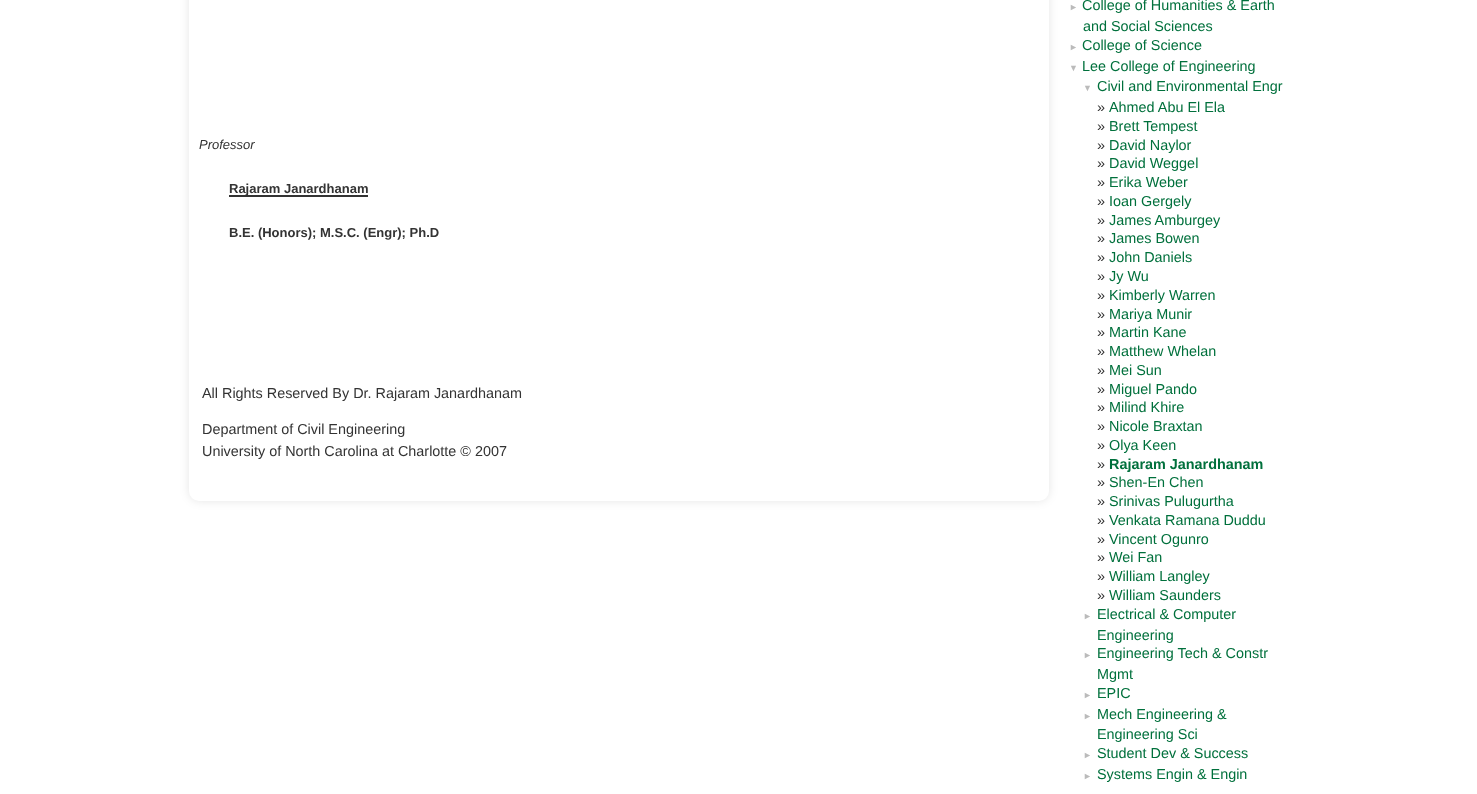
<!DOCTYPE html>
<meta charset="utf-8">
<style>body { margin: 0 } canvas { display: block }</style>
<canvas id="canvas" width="1477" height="794"></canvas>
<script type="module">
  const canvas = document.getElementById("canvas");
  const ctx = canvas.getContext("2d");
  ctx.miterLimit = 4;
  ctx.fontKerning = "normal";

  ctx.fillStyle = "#ffffff";
  ctx.fillRect(0, 0, 1477, 794);
  ctx.fillStyle = "rgba(0, 0, 0, 0.1)";
  ctx.filter = "blur(5px)";
  ctx.beginPath();
  ctx.roundRect(189, -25, 860, 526, 10);
  ctx.fill();
  ctx.filter = "none";
  ctx.fillStyle = "#ffffff";
  ctx.beginPath();
  ctx.roundRect(189, -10, 860, 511, 10);
  ctx.fill();
  ctx.font = "italic 13px Liberation Sans";
  ctx.fillStyle = "#333333";
  ctx.fillText("Professor", 199, 149);
  ctx.fillRect(229, 195, 139, 2);
  ctx.font = "bold 13px Liberation Sans";
  ctx.fillText("Rajaram Janardhanam", 229, 193);
  ctx.fillText("B.E. (Honors); M.S.C. (Engr); Ph.D", 229, 237);
  ctx.font = "14.4px Liberation Sans";
  ctx.fillText("All Rights Reserved By Dr. Rajaram Janardhanam", 202, 398);
  ctx.fillText("Department of Civil Engineering", 202, 434);
  ctx.fillText("University of North Carolina at Charlotte © 2007", 202, 456);
  ctx.font = "9px Liberation Sans";
  ctx.fillStyle = "#bbbbbb";
  ctx.fillText("►", 1069, 10);
  ctx.font = "14.4px Liberation Sans";
  ctx.fillStyle = "#00703c";
  ctx.fillText("College of Humanities & Earth", 1082, 10);
  ctx.fillText("and Social Sciences", 1083, 31);
  ctx.font = "9px Liberation Sans";
  ctx.fillStyle = "#bbbbbb";
  ctx.fillText("►", 1069, 50);
  ctx.font = "14.4px Liberation Sans";
  ctx.fillStyle = "#00703c";
  ctx.fillText("College of Science", 1082, 50);
  ctx.font = "9px Liberation Sans";
  ctx.fillStyle = "#bbbbbb";
  ctx.fillText("▼", 1069, 71);
  ctx.font = "14.4px Liberation Sans";
  ctx.fillStyle = "#00703c";
  ctx.fillText("Lee College of Engineering", 1082, 71);
  ctx.font = "9px Liberation Sans";
  ctx.fillStyle = "#bbbbbb";
  ctx.fillText("▼", 1083, 91);
  ctx.font = "14.4px Liberation Sans";
  ctx.fillStyle = "#00703c";
  ctx.fillText("Civil and Environmental Engr", 1097, 91);
  ctx.fillStyle = "#333333";
  ctx.fillText("»", 1097, 112);
  ctx.fillStyle = "#00703c";
  ctx.fillText("Ahmed Abu El Ela", 1109, 112);
  ctx.fillStyle = "#333333";
  ctx.fillText("»", 1097, 131);
  ctx.fillStyle = "#00703c";
  ctx.fillText("Brett Tempest", 1109, 131);
  ctx.fillStyle = "#333333";
  ctx.fillText("»", 1097, 150);
  ctx.fillStyle = "#00703c";
  ctx.fillText("David Naylor", 1109, 150);
  ctx.fillStyle = "#333333";
  ctx.fillText("»", 1097, 168);
  ctx.fillStyle = "#00703c";
  ctx.fillText("David Weggel", 1109, 168);
  ctx.fillStyle = "#333333";
  ctx.fillText("»", 1097, 187);
  ctx.fillStyle = "#00703c";
  ctx.fillText("Erika Weber", 1109, 187);
  ctx.fillStyle = "#333333";
  ctx.fillText("»", 1097, 206);
  ctx.fillStyle = "#00703c";
  ctx.fillText("Ioan Gergely", 1109, 206);
  ctx.fillStyle = "#333333";
  ctx.fillText("»", 1097, 225);
  ctx.fillStyle = "#00703c";
  ctx.fillText("James Amburgey", 1109, 225);
  ctx.fillStyle = "#333333";
  ctx.fillText("»", 1097, 243);
  ctx.fillStyle = "#00703c";
  ctx.fillText("James Bowen", 1109, 243);
  ctx.fillStyle = "#333333";
  ctx.fillText("»", 1097, 262);
  ctx.fillStyle = "#00703c";
  ctx.fillText("John Daniels", 1109, 262);
  ctx.fillStyle = "#333333";
  ctx.fillText("»", 1097, 281);
  ctx.fillStyle = "#00703c";
  ctx.fillText("Jy Wu", 1109, 281);
  ctx.fillStyle = "#333333";
  ctx.fillText("»", 1097, 300);
  ctx.fillStyle = "#00703c";
  ctx.fillText("Kimberly Warren", 1109, 300);
  ctx.fillStyle = "#333333";
  ctx.fillText("»", 1097, 319);
  ctx.fillStyle = "#00703c";
  ctx.fillText("Mariya Munir", 1109, 319);
  ctx.fillStyle = "#333333";
  ctx.fillText("»", 1097, 337);
  ctx.fillStyle = "#00703c";
  ctx.fillText("Martin Kane", 1109, 337);
  ctx.fillStyle = "#333333";
  ctx.fillText("»", 1097, 356);
  ctx.fillStyle = "#00703c";
  ctx.fillText("Matthew Whelan", 1109, 356);
  ctx.fillStyle = "#333333";
  ctx.fillText("»", 1097, 375);
  ctx.fillStyle = "#00703c";
  ctx.fillText("Mei Sun", 1109, 375);
  ctx.fillStyle = "#333333";
  ctx.fillText("»", 1097, 394);
  ctx.fillStyle = "#00703c";
  ctx.fillText("Miguel Pando", 1109, 394);
  ctx.fillStyle = "#333333";
  ctx.fillText("»", 1097, 412);
  ctx.fillStyle = "#00703c";
  ctx.fillText("Milind Khire", 1109, 412);
  ctx.fillStyle = "#333333";
  ctx.fillText("»", 1097, 431);
  ctx.fillStyle = "#00703c";
  ctx.fillText("Nicole Braxtan", 1109, 431);
  ctx.fillStyle = "#333333";
  ctx.fillText("»", 1097, 450);
  ctx.fillStyle = "#00703c";
  ctx.fillText("Olya Keen", 1109, 450);
  ctx.fillStyle = "#333333";
  ctx.fillText("»", 1097, 469);
  ctx.font = "bold 14.4px Liberation Sans";
  ctx.fillStyle = "#00703c";
  ctx.fillText("Rajaram Janardhanam", 1109, 469);
  ctx.font = "14.4px Liberation Sans";
  ctx.fillStyle = "#333333";
  ctx.fillText("»", 1097, 487);
  ctx.fillStyle = "#00703c";
  ctx.fillText("Shen-En Chen", 1109, 487);
  ctx.fillStyle = "#333333";
  ctx.fillText("»", 1097, 506);
  ctx.fillStyle = "#00703c";
  ctx.fillText("Srinivas Pulugurtha", 1109, 506);
  ctx.fillStyle = "#333333";
  ctx.fillText("»", 1097, 525);
  ctx.fillStyle = "#00703c";
  ctx.fillText("Venkata Ramana Duddu", 1109, 525);
  ctx.fillStyle = "#333333";
  ctx.fillText("»", 1097, 544);
  ctx.fillStyle = "#00703c";
  ctx.fillText("Vincent Ogunro", 1109, 544);
  ctx.fillStyle = "#333333";
  ctx.fillText("»", 1097, 562);
  ctx.fillStyle = "#00703c";
  ctx.fillText("Wei Fan", 1109, 562);
  ctx.fillStyle = "#333333";
  ctx.fillText("»", 1097, 581);
  ctx.fillStyle = "#00703c";
  ctx.fillText("William Langley", 1109, 581);
  ctx.fillStyle = "#333333";
  ctx.fillText("»", 1097, 600);
  ctx.fillStyle = "#00703c";
  ctx.fillText("William Saunders", 1109, 600);
  ctx.font = "9px Liberation Sans";
  ctx.fillStyle = "#bbbbbb";
  ctx.fillText("►", 1083, 619);
  ctx.font = "14.4px Liberation Sans";
  ctx.fillStyle = "#00703c";
  ctx.fillText("Electrical & Computer", 1097, 619);
  ctx.fillText("Engineering", 1097, 640);
  ctx.font = "9px Liberation Sans";
  ctx.fillStyle = "#bbbbbb";
  ctx.fillText("►", 1083, 658);
  ctx.font = "14.4px Liberation Sans";
  ctx.fillStyle = "#00703c";
  ctx.fillText("Engineering Tech & Constr", 1097, 658);
  ctx.fillText("Mgmt", 1097, 679);
  ctx.font = "9px Liberation Sans";
  ctx.fillStyle = "#bbbbbb";
  ctx.fillText("►", 1083, 698);
  ctx.font = "14.4px Liberation Sans";
  ctx.fillStyle = "#00703c";
  ctx.fillText("EPIC", 1097, 698);
  ctx.font = "9px Liberation Sans";
  ctx.fillStyle = "#bbbbbb";
  ctx.fillText("►", 1083, 719);
  ctx.font = "14.4px Liberation Sans";
  ctx.fillStyle = "#00703c";
  ctx.fillText("Mech Engineering &", 1097, 719);
  ctx.fillText("Engineering Sci", 1097, 739);
  ctx.font = "9px Liberation Sans";
  ctx.fillStyle = "#bbbbbb";
  ctx.fillText("►", 1083, 758);
  ctx.font = "14.4px Liberation Sans";
  ctx.fillStyle = "#00703c";
  ctx.fillText("Student Dev & Success", 1097, 758);
  ctx.font = "9px Liberation Sans";
  ctx.fillStyle = "#bbbbbb";
  ctx.fillText("►", 1083, 779);
  ctx.font = "14.4px Liberation Sans";
  ctx.fillStyle = "#00703c";
  ctx.fillText("Systems Engin & Engin", 1097, 779);
</script>
